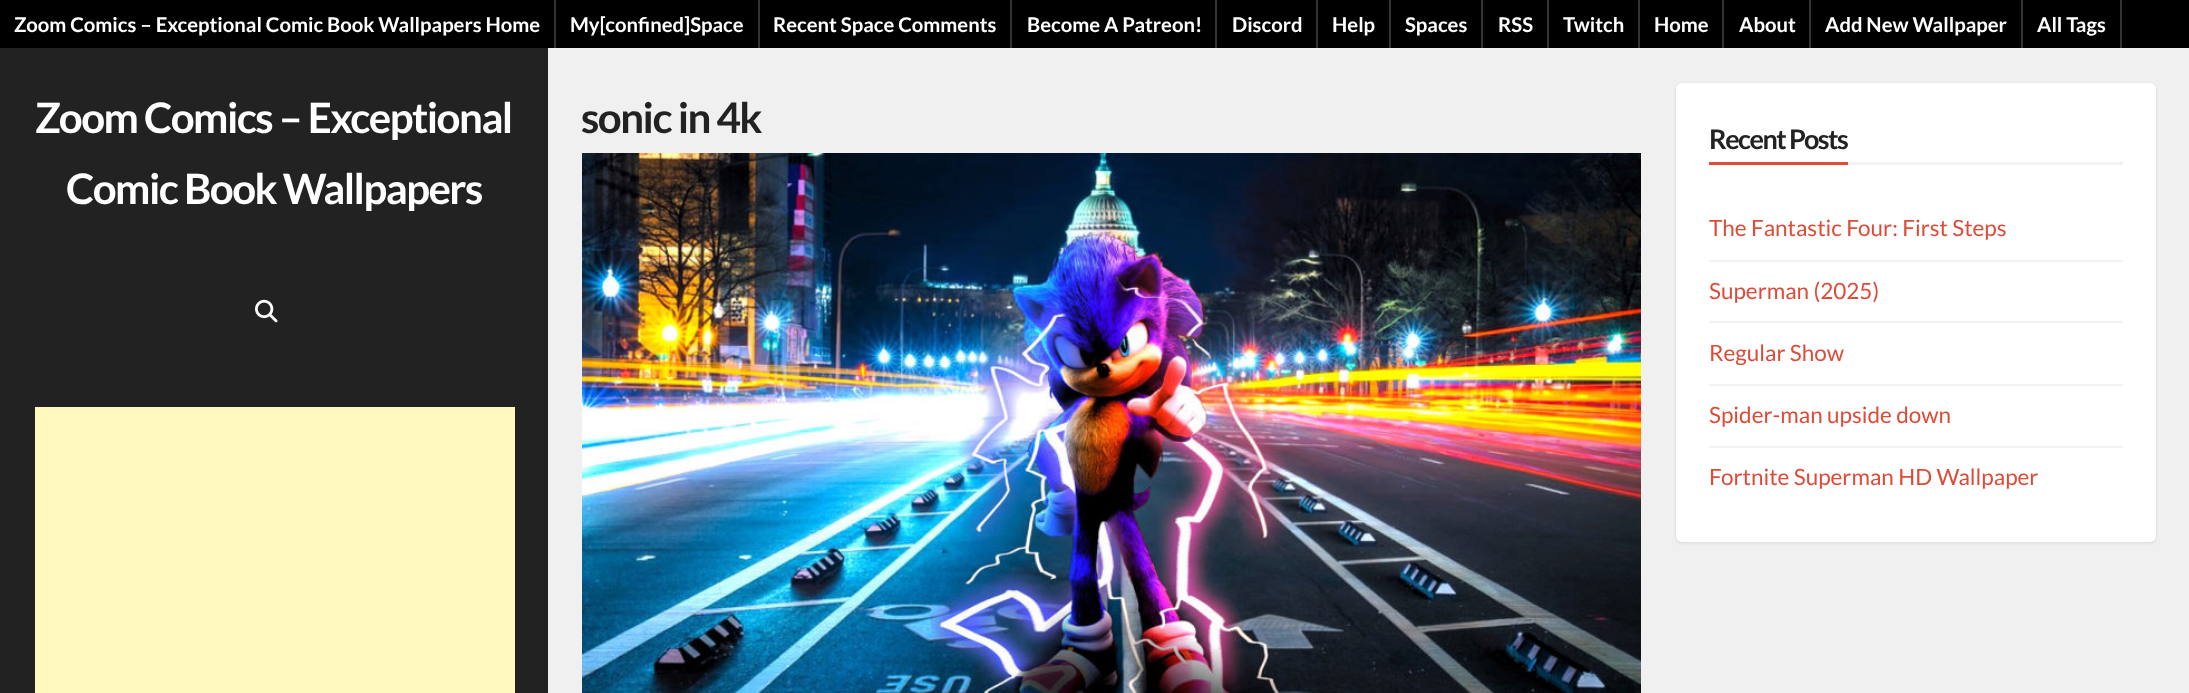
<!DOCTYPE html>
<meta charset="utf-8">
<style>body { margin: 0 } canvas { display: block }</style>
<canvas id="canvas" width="2189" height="693"></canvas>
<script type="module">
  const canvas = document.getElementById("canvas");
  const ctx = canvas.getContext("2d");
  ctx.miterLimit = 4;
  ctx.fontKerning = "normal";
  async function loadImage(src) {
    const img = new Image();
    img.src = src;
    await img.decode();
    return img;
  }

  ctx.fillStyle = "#f0f0f0";
  ctx.fillRect(0, 0, 2189, 693);
  ctx.fillStyle = "#000000";
  ctx.fillRect(0, 0, 2189, 48);
  ctx.fillStyle = "#333333";
  ctx.fillRect(554, 0, 2, 48);
  ctx.font = "bold 20.25px Lato";
  ctx.fillStyle = "#ffffff";
  ctx.fillText("Zoom Comics – Exceptional Comic Book Wallpapers Home", 14, 32);
  ctx.fillStyle = "#333333";
  ctx.fillRect(758, 0, 2, 48);
  ctx.fillStyle = "#ffffff";
  ctx.fillText("My[confined]Space", 570, 32);
  ctx.fillStyle = "#333333";
  ctx.fillRect(1010, 0, 2, 48);
  ctx.fillStyle = "#ffffff";
  ctx.fillText("Recent Space Comments", 773, 32);
  ctx.fillStyle = "#333333";
  ctx.fillRect(1215, 0, 2, 48);
  ctx.fillStyle = "#ffffff";
  ctx.fillText("Become A Patreon!", 1027, 32);
  ctx.fillStyle = "#333333";
  ctx.fillRect(1316, 0, 2, 48);
  ctx.fillStyle = "#ffffff";
  ctx.fillText("Discord", 1232, 32);
  ctx.fillStyle = "#333333";
  ctx.fillRect(1389, 0, 2, 48);
  ctx.fillStyle = "#ffffff";
  ctx.fillText("Help", 1332, 32);
  ctx.fillStyle = "#333333";
  ctx.fillRect(1481, 0, 2, 48);
  ctx.fillStyle = "#ffffff";
  ctx.fillText("Spaces", 1405, 32);
  ctx.fillStyle = "#333333";
  ctx.fillRect(1547, 0, 2, 48);
  ctx.fillStyle = "#ffffff";
  ctx.fillText("RSS", 1498, 32);
  ctx.fillStyle = "#333333";
  ctx.fillRect(1638, 0, 2, 48);
  ctx.fillStyle = "#ffffff";
  ctx.fillText("Twitch", 1563, 32);
  ctx.fillStyle = "#333333";
  ctx.fillRect(1722, 0, 2, 48);
  ctx.fillStyle = "#ffffff";
  ctx.fillText("Home", 1654, 32);
  ctx.fillStyle = "#333333";
  ctx.fillRect(1809, 0, 2, 48);
  ctx.fillStyle = "#ffffff";
  ctx.fillText("About", 1739, 32);
  ctx.fillStyle = "#333333";
  ctx.fillRect(2021, 0, 2, 48);
  ctx.fillStyle = "#ffffff";
  ctx.fillText("Add New Wallpaper", 1825, 32);
  ctx.fillStyle = "#333333";
  ctx.fillRect(2120, 0, 2, 48);
  ctx.fillStyle = "#ffffff";
  ctx.fillText("All Tags", 2037, 32);
  ctx.fillStyle = "#222222";
  ctx.fillRect(0, 48, 548, 645);
  ctx.letterSpacing = "-1.5px";
  ctx.font = "bold 42px Lato";
  ctx.fillStyle = "#ffffff";
  ctx.fillText("Zoom Comics – Exceptional", 35, 133);
  ctx.fillText("Comic Book Wallpapers", 66, 204);
  ctx.drawImage(await loadImage("img1.png"), 255, 299, 23, 24);
  ctx.fillStyle = "#fff9c0";
  ctx.fillRect(35, 407, 480, 286);
  ctx.fillStyle = "#222222";
  ctx.fillText("sonic in 4k", 581, 133);
  ctx.drawImage(await loadImage("img2.png"), 582, 153, 1059, 540);
  ctx.fillStyle = "rgba(0, 0, 0, 0.1)";
  ctx.filter = "blur(1.5px)";
  ctx.beginPath();
  ctx.roundRect(1676, 84, 480, 459, 6);
  ctx.fill();
  ctx.filter = "none";
  ctx.fillStyle = "#ffffff";
  ctx.beginPath();
  ctx.roundRect(1676, 83, 480, 459, 6);
  ctx.fill();
  ctx.fillStyle = "#f2f2f2";
  ctx.fillRect(1848, 162, 275, 3);
  ctx.fillStyle = "#dd4c39";
  ctx.fillRect(1709, 162, 139, 3);
  ctx.font = "bold 27px Lato";
  ctx.fillStyle = "#222222";
  ctx.fillText("Recent Posts", 1709, 149);
  ctx.fillStyle = "#f2f2f2";
  ctx.fillRect(1709, 260, 414, 2);
  ctx.letterSpacing = "0px";
  ctx.font = "22.5px Lato";
  ctx.fillStyle = "#dd4c39";
  ctx.fillText("The Fantastic Four: First Steps", 1709, 236);
  ctx.fillStyle = "#f2f2f2";
  ctx.fillRect(1709, 321, 414, 2);
  ctx.fillStyle = "#dd4c39";
  ctx.fillText("Superman (2025)", 1709, 299);
  ctx.fillStyle = "#f2f2f2";
  ctx.fillRect(1709, 384, 414, 2);
  ctx.fillStyle = "#dd4c39";
  ctx.fillText("Regular Show", 1709, 361);
  ctx.fillStyle = "#f2f2f2";
  ctx.fillRect(1709, 446, 414, 2);
  ctx.fillStyle = "#dd4c39";
  ctx.fillText("Spider-man upside down", 1709, 423);
  ctx.fillText("Fortnite Superman HD Wallpaper", 1709, 485);
</script>
